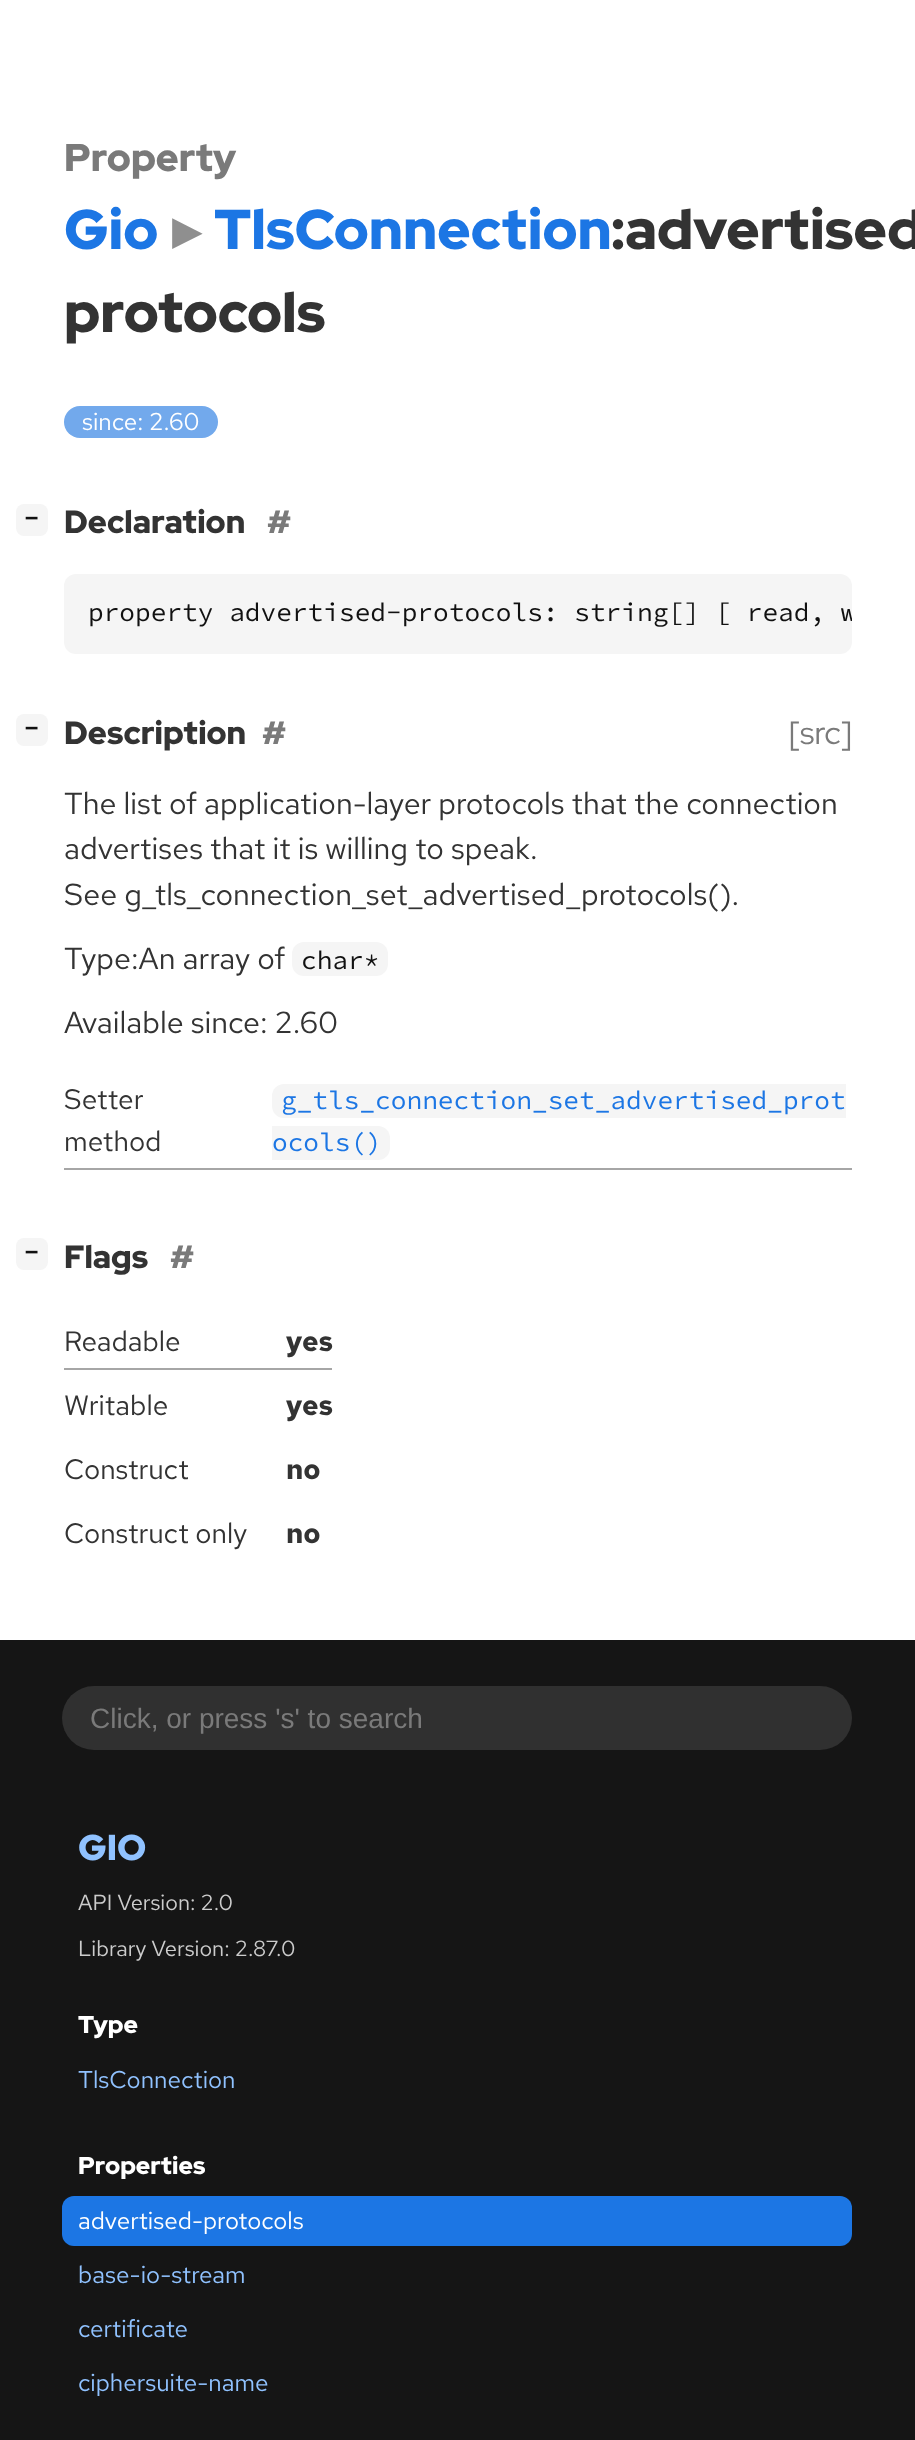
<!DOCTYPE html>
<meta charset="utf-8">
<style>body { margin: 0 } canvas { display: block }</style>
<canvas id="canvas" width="915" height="2440"></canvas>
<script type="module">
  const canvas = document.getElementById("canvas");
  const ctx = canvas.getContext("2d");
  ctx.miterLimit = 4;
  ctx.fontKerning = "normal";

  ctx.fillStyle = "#ffffff";
  ctx.fillRect(0, 0, 915, 2440);
  ctx.font = "900 38.5px Red Hat Display";
  ctx.fillStyle = "#7a7a7a";
  ctx.fillText("Property", 64, 171);
  ctx.font = "900 56px Red Hat Display";
  ctx.fillStyle = "#1c76e4";
  ctx.fillText("Gio", 64, 249);
  ctx.font = "bold 56px DejaVu Sans";
  ctx.fillStyle = "#8f8f8f";
  ctx.fillText("▸", 172, 249);
  ctx.font = "900 56px Red Hat Display";
  ctx.fillStyle = "#1c76e4";
  ctx.fillText("TlsConnection", 214, 249);
  ctx.fillStyle = "#333333";
  ctx.fillText(":advertised", 611, 249);
  ctx.fillText("protocols", 64, 332);
  ctx.fillStyle = "#72a9ec";
  ctx.beginPath();
  ctx.roundRect(64, 406, 154, 32, 16);
  ctx.fill();
  ctx.font = "24.25px Red Hat Text";
  ctx.fillStyle = "#ffffff";
  ctx.fillText("since: 2.60", 82, 430);
  ctx.fillStyle = "#f5f5f5";
  ctx.beginPath();
  ctx.roundRect(16, 504, 32, 32, 8);
  ctx.fill();
  ctx.font = "bold 22px DejaVu Sans Mono";
  ctx.fillStyle = "#111111";
  ctx.fillText("−", 25, 525);
  ctx.font = "900 32px Red Hat Display";
  ctx.fillStyle = "#333333";
  ctx.fillText("Declaration", 64, 533);
  ctx.fillStyle = "#7a7a7a";
  ctx.fillText("#", 267, 533);
  ctx.fillStyle = "#f5f5f5";
  ctx.beginPath();
  ctx.roundRect(64, 574, 788, 80, 12);
  ctx.fill();
  ctx.save();
  ctx.beginPath();
  ctx.roundRect(64, 574, 788, 80, 12);
  ctx.clip();
  ctx.font = "26.15px Source Code Pro";
  ctx.fillStyle = "#111111";
  ctx.fillText("property advertised-protocols: string[] [ read, w", 88, 621);
  ctx.restore();
  ctx.beginPath();
  ctx.roundRect(16, 714, 32, 32, 8);
  ctx.fill();
  ctx.font = "bold 22px DejaVu Sans Mono";
  ctx.fillStyle = "#111111";
  ctx.fillText("−", 25, 735);
  ctx.font = "900 32px Red Hat Display";
  ctx.fillStyle = "#333333";
  ctx.fillText("Description", 64, 744);
  ctx.fillStyle = "#7a7a7a";
  ctx.fillText("#", 262, 744);
  ctx.font = "32px Red Hat Display";
  ctx.fillText("[src]", 789, 744);
  ctx.font = "30.4px Red Hat Text";
  ctx.fillStyle = "#333333";
  ctx.fillText("The list of application-layer protocols that the connection", 64, 814);
  ctx.fillText("advertises that it is willing to speak.", 64, 859);
  ctx.fillText("See g_tls_connection_set_advertised_protocols().", 64, 905);
  ctx.fillText("Type:An array of", 64, 969);
  ctx.fillStyle = "#f5f5f5";
  ctx.beginPath();
  ctx.roundRect(292, 942, 96, 34, 12);
  ctx.fill();
  ctx.font = "26.15px Source Code Pro";
  ctx.fillStyle = "#111111";
  ctx.fillText("char*", 301, 969);
  ctx.font = "30.4px Red Hat Text";
  ctx.fillStyle = "#333333";
  ctx.fillText("Available since: 2.60", 64, 1033);
  ctx.fillStyle = "#a6a6a6";
  ctx.fillRect(64, 1168, 788, 2);
  ctx.font = "28px Red Hat Text";
  ctx.fillStyle = "#333333";
  ctx.fillText("Setter", 64, 1109);
  ctx.fillText("method", 64, 1151);
  ctx.fillStyle = "#f5f5f5";
  ctx.beginPath();
  ctx.roundRect(272, 1084, 574, 34, [12, 0, 0, 12]);
  ctx.fill();
  ctx.font = "26.15px Source Code Pro";
  ctx.fillStyle = "#1c76e4";
  ctx.fillText("g_tls_connection_set_advertised_prot", 281, 1109);
  ctx.fillStyle = "#f5f5f5";
  ctx.beginPath();
  ctx.roundRect(272, 1126, 118, 34, [0, 12, 12, 0]);
  ctx.fill();
  ctx.fillStyle = "#1c76e4";
  ctx.fillText("ocols()", 272, 1151);
  ctx.fillStyle = "#f5f5f5";
  ctx.beginPath();
  ctx.roundRect(16, 1238, 32, 32, 8);
  ctx.fill();
  ctx.font = "bold 22px DejaVu Sans Mono";
  ctx.fillStyle = "#111111";
  ctx.fillText("−", 25, 1259);
  ctx.font = "900 32px Red Hat Display";
  ctx.fillStyle = "#333333";
  ctx.fillText("Flags", 64, 1268);
  ctx.fillStyle = "#7a7a7a";
  ctx.fillText("#", 170, 1268);
  ctx.fillStyle = "#a6a6a6";
  ctx.fillRect(64, 1368, 268, 2);
  ctx.font = "28px Red Hat Text";
  ctx.fillStyle = "#333333";
  ctx.fillText("Readable", 64, 1351);
  ctx.font = "bold 28px Red Hat Text";
  ctx.fillText("yes", 286, 1351);
  ctx.font = "28px Red Hat Text";
  ctx.fillText("Writable", 64, 1415);
  ctx.font = "bold 28px Red Hat Text";
  ctx.fillText("yes", 286, 1415);
  ctx.font = "28px Red Hat Text";
  ctx.fillText("Construct", 64, 1479);
  ctx.font = "bold 28px Red Hat Text";
  ctx.fillText("no", 286, 1479);
  ctx.font = "28px Red Hat Text";
  ctx.fillText("Construct only", 64, 1543);
  ctx.font = "bold 28px Red Hat Text";
  ctx.fillText("no", 286, 1543);
  ctx.fillStyle = "#151515";
  ctx.fillRect(0, 1640, 915, 800);
  ctx.fillStyle = "#303030";
  ctx.beginPath();
  ctx.roundRect(62, 1686, 790, 64, 32);
  ctx.fill();
  ctx.font = "28px Liberation Sans";
  ctx.fillStyle = "#7a7a7a";
  ctx.fillText("Click, or press 's' to search", 90, 1728);
  ctx.font = "900 36px Red Hat Display";
  ctx.fillStyle = "#90c2ff";
  ctx.fillText("GIO", 78, 1860);
  ctx.font = "21.9px Red Hat Text";
  ctx.fillStyle = "#cccccc";
  ctx.fillText("API Version: 2.0", 78, 1910);
  ctx.fillText("Library Version: 2.87.0", 78, 1956);
  ctx.font = "900 24.25px Red Hat Display";
  ctx.fillStyle = "#ffffff";
  ctx.fillText("Type", 78, 2033);
  ctx.font = "24.25px Red Hat Text";
  ctx.fillStyle = "#90c2ff";
  ctx.fillText("TlsConnection", 78, 2088);
  ctx.font = "900 24.25px Red Hat Display";
  ctx.fillStyle = "#ffffff";
  ctx.fillText("Properties", 78, 2174);
  ctx.fillStyle = "#1c76e4";
  ctx.beginPath();
  ctx.roundRect(62, 2196, 790, 50, 12);
  ctx.fill();
  ctx.font = "24.25px Red Hat Text";
  ctx.fillStyle = "#ffffff";
  ctx.fillText("advertised-protocols", 78, 2229);
  ctx.fillStyle = "#90c2ff";
  ctx.fillText("base-io-stream", 78, 2283);
  ctx.fillText("certificate", 78, 2337);
  ctx.fillText("ciphersuite-name", 78, 2391);
</script>
